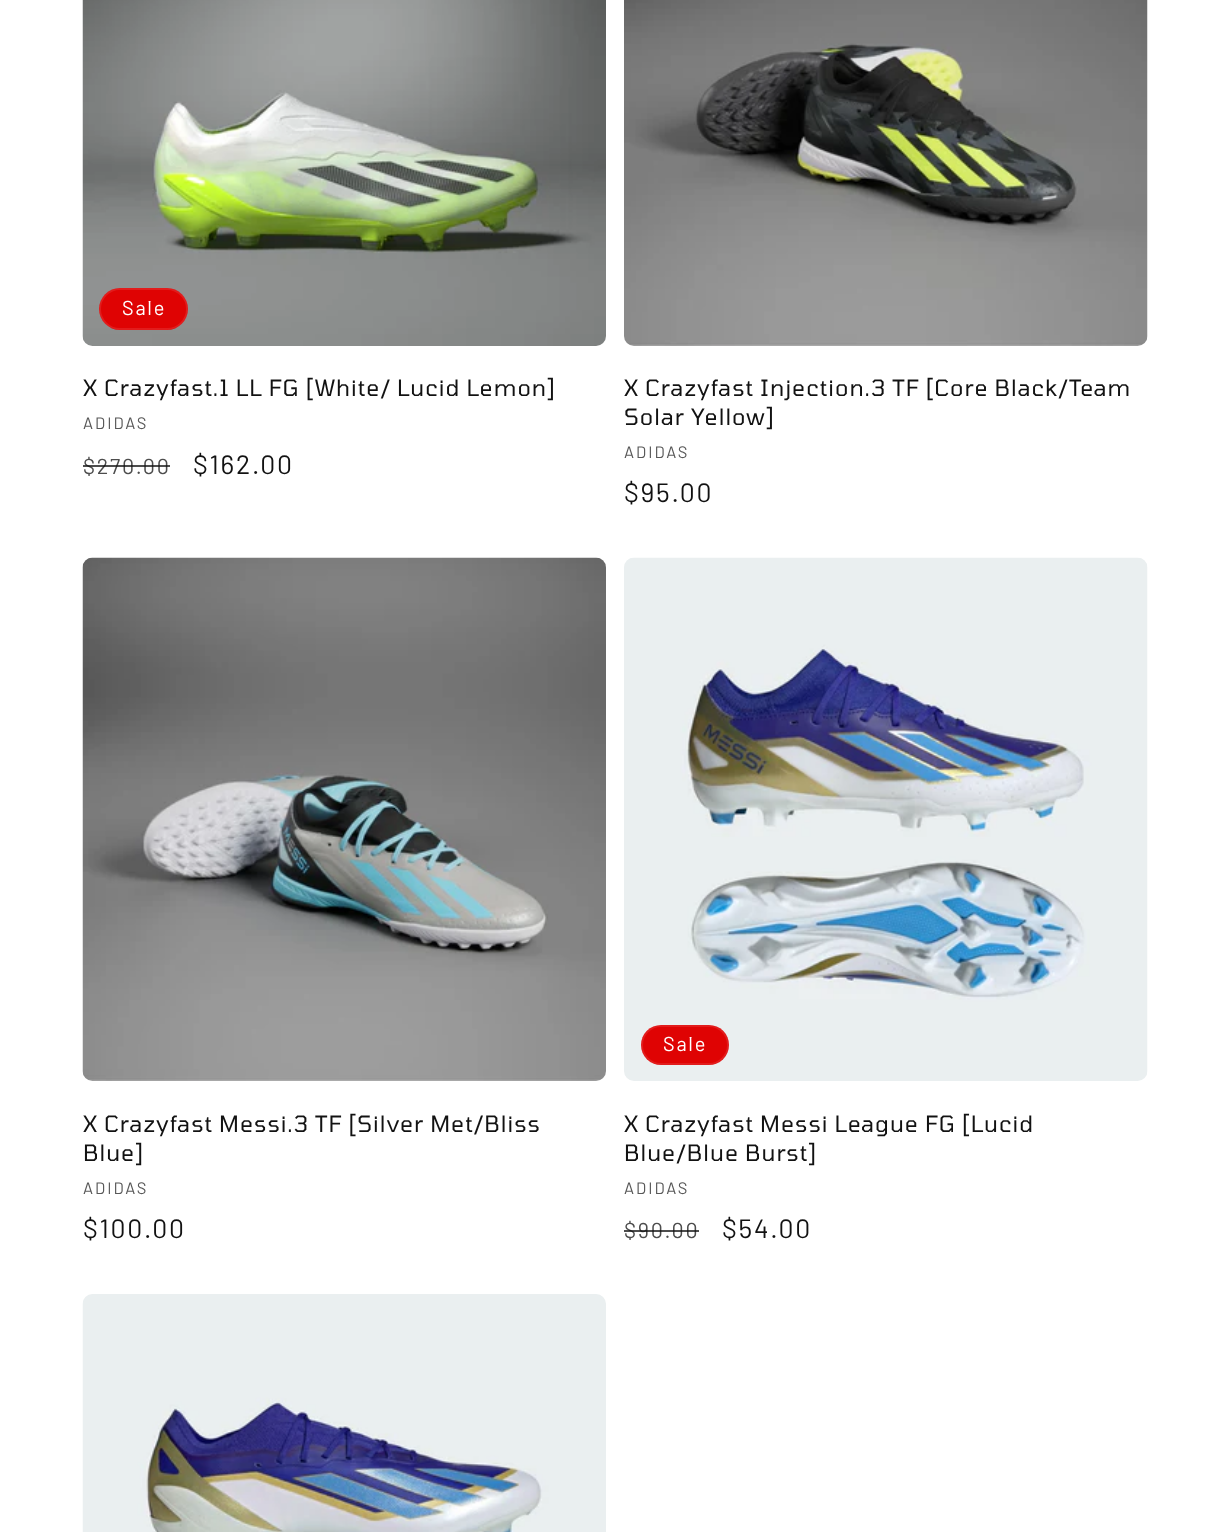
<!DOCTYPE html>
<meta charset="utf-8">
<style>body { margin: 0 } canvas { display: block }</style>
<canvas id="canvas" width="1230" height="1532"></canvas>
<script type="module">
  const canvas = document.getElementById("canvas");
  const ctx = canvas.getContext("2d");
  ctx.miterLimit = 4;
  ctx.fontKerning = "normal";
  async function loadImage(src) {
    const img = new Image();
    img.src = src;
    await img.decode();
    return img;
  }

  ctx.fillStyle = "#ffffff";
  ctx.fillRect(0, 0, 1230, 1532);
  ctx.drawImage(await loadImage("img1.png"), 82, 0, 524, 346);
  ctx.fillStyle = "#df0303";
  ctx.beginPath();
  ctx.roundRect(99, 288, 89, 42, 21);
  ctx.fill();
  ctx.beginPath();
  ctx.roundRect(100, 289, 87, 40, 20);
  ctx.strokeStyle = "rgba(255, 255, 255, 0.1)";
  ctx.lineWidth = 2;
  ctx.stroke();
  ctx.letterSpacing = "1.75px";
  ctx.font = "20px Barlow";
  ctx.fillStyle = "#ffffff";
  ctx.fillText("Sale", 122, 315);
  ctx.letterSpacing = "1.05px";
  ctx.font = "22.4px Tomorrow";
  ctx.fillStyle = "#121212";
  ctx.fillText("X Crazyfast.1 LL FG [White/ Lucid Lemon]", 83, 396);
  ctx.letterSpacing = "2px";
  ctx.font = "16.5px Barlow";
  ctx.fillStyle = "#595959";
  ctx.fillText("ADIDAS", 83, 429);
  ctx.letterSpacing = "1.75px";
  ctx.font = "21.5px Barlow";
  ctx.fillStyle = "#4d4d4d";
  ctx.fillText("$270.00", 83, 474);
  ctx.fillStyle = "rgba(18, 18, 18, 0.75)";
  ctx.fillRect(83, 465, 87, 2);
  ctx.font = "26.5px Barlow";
  ctx.fillStyle = "#121212";
  ctx.fillText("$162.00", 193, 474);
  ctx.drawImage(await loadImage("img2.png"), 624, 0, 524, 346);
  ctx.letterSpacing = "1.05px";
  ctx.font = "22.4px Tomorrow";
  ctx.fillText("X Crazyfast Injection.3 TF [Core Black/Team", 624, 396);
  ctx.fillText("Solar Yellow]", 624, 425);
  ctx.letterSpacing = "2px";
  ctx.font = "16.5px Barlow";
  ctx.fillStyle = "#595959";
  ctx.fillText("ADIDAS", 624, 458);
  ctx.letterSpacing = "1.75px";
  ctx.font = "26.5px Barlow";
  ctx.fillStyle = "#121212";
  ctx.fillText("$95.00", 624, 502);
  ctx.drawImage(await loadImage("img3.png"), 82, 557, 524, 524);
  ctx.letterSpacing = "1.05px";
  ctx.font = "22.4px Tomorrow";
  ctx.fillText("X Crazyfast Messi.3 TF [Silver Met/Bliss", 83, 1132);
  ctx.fillText("Blue]", 83, 1161);
  ctx.letterSpacing = "2px";
  ctx.font = "16.5px Barlow";
  ctx.fillStyle = "#595959";
  ctx.fillText("ADIDAS", 83, 1194);
  ctx.letterSpacing = "1.75px";
  ctx.font = "26.5px Barlow";
  ctx.fillStyle = "#121212";
  ctx.fillText("$100.00", 83, 1238);
  ctx.drawImage(await loadImage("img4.png"), 624, 557, 524, 524);
  ctx.fillStyle = "#df0303";
  ctx.beginPath();
  ctx.roundRect(641, 1025, 88, 40, 20);
  ctx.fill();
  ctx.beginPath();
  ctx.roundRect(642, 1026, 86, 38, 19);
  ctx.stroke();
  ctx.font = "20px Barlow";
  ctx.fillStyle = "#ffffff";
  ctx.fillText("Sale", 663, 1051);
  ctx.letterSpacing = "1.05px";
  ctx.font = "22.4px Tomorrow";
  ctx.fillStyle = "#121212";
  ctx.fillText("X Crazyfast Messi League FG [Lucid", 624, 1132);
  ctx.fillText("Blue/Blue Burst]", 624, 1161);
  ctx.letterSpacing = "2px";
  ctx.font = "16.5px Barlow";
  ctx.fillStyle = "#595959";
  ctx.fillText("ADIDAS", 624, 1194);
  ctx.letterSpacing = "1.75px";
  ctx.font = "21.5px Barlow";
  ctx.fillStyle = "#4d4d4d";
  ctx.fillText("$90.00", 624, 1238);
  ctx.fillStyle = "rgba(18, 18, 18, 0.75)";
  ctx.fillRect(624, 1230, 75, 2);
  ctx.font = "26.5px Barlow";
  ctx.fillStyle = "#121212";
  ctx.fillText("$54.00", 722, 1238);
  ctx.drawImage(await loadImage("img5.png"), 82, 1294, 524, 238);
</script>
